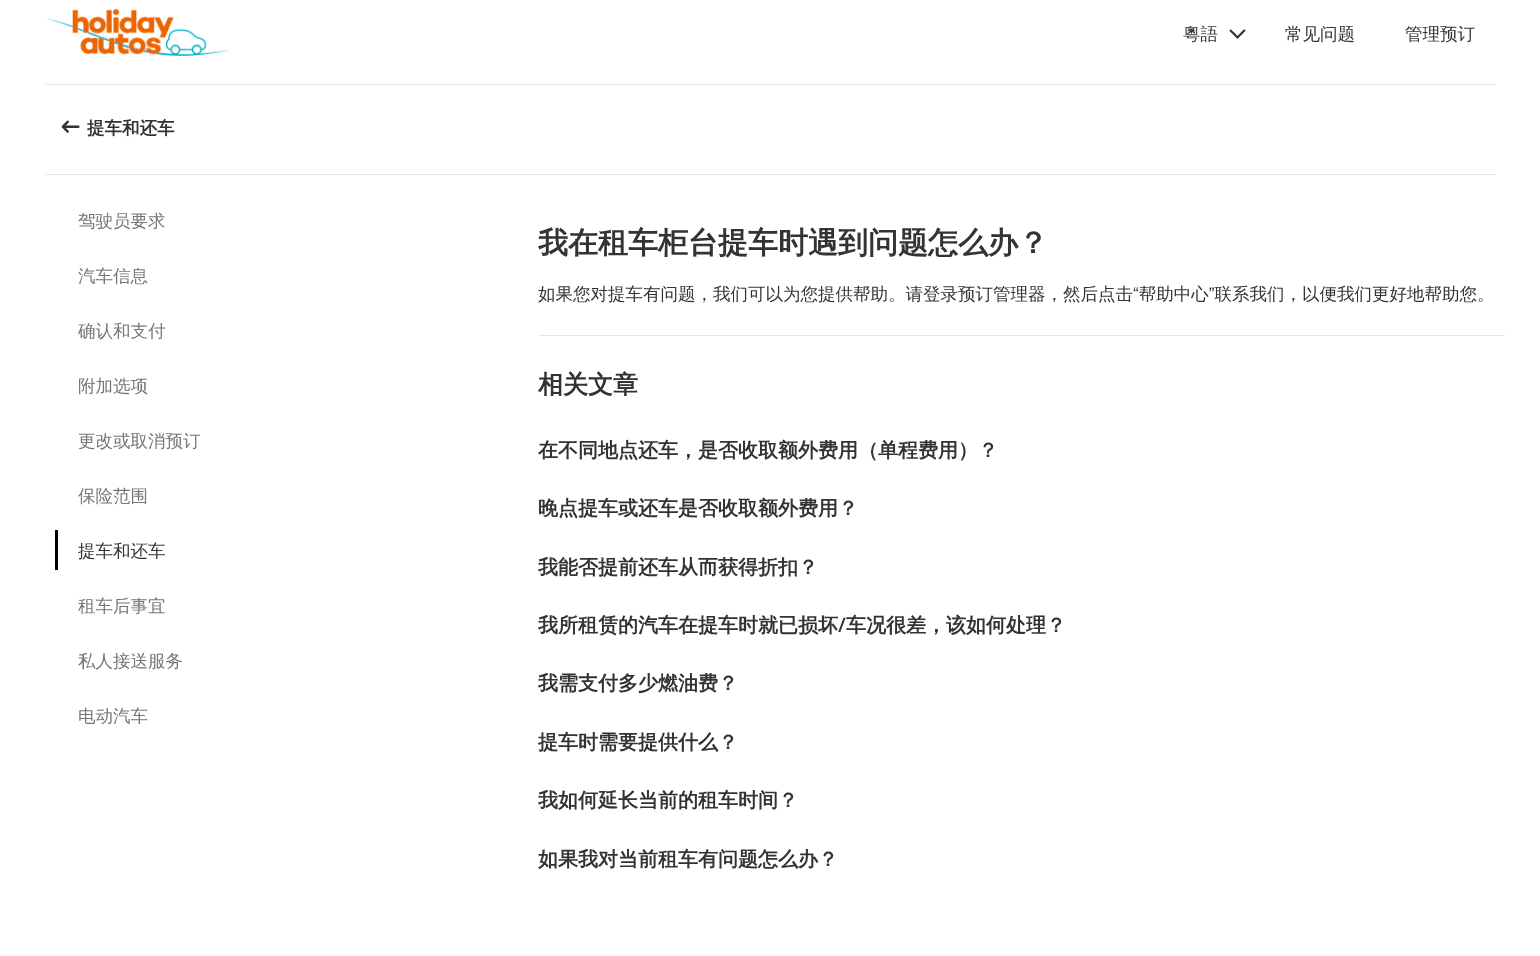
<!DOCTYPE html>
<meta charset="utf-8">
<style>body { margin: 0 } canvas { display: block }</style>
<canvas id="canvas" width="1540" height="956"></canvas>
<script type="module">
  const canvas = document.getElementById("canvas");
  const ctx = canvas.getContext("2d");
  ctx.miterLimit = 4;
  ctx.fontKerning = "normal";
  async function loadImage(src) {
    const img = new Image();
    img.src = src;
    await img.decode();
    return img;
  }

  ctx.fillStyle = "#ffffff";
  ctx.fillRect(0, 0, 1540, 956);
  ctx.drawImage(await loadImage("img1.png"), 46, 8, 184, 48);
  ctx.font = "500 17.5px WenQuanYi Zen Hei";
  ctx.fillStyle = "#333333";
  ctx.fillText("粵語", 1183, 40);
  ctx.drawImage(await loadImage("img2.png"), 1229, 29, 17, 10);
  ctx.fillText("常见问题", 1285, 40);
  ctx.fillText("管理预订", 1405, 40);
  ctx.fillStyle = "#e5e5e5";
  ctx.fillRect(45, 84, 1450, 1);
  ctx.drawImage(await loadImage("img3.png"), 61, 120, 19, 13);
  ctx.font = "bold 17.5px WenQuanYi Zen Hei";
  ctx.fillStyle = "#333333";
  ctx.fillText("提车和还车", 87, 134);
  ctx.fillStyle = "#e5e5e5";
  ctx.fillRect(45, 174, 1450, 1);
  ctx.font = "500 17.5px WenQuanYi Zen Hei";
  ctx.fillStyle = "#767676";
  ctx.fillText("驾驶员要求", 78, 227);
  ctx.fillText("汽车信息", 78, 282);
  ctx.fillText("确认和支付", 78, 337);
  ctx.fillText("附加选项", 78, 392);
  ctx.fillText("更改或取消预订", 78, 447);
  ctx.fillText("保险范围", 78, 502);
  ctx.fillStyle = "#000000";
  ctx.fillRect(55, 530, 3, 40);
  ctx.fillStyle = "#333333";
  ctx.fillText("提车和还车", 78, 557);
  ctx.fillStyle = "#767676";
  ctx.fillText("租车后事宜", 78, 612);
  ctx.fillText("私人接送服务", 78, 667);
  ctx.fillText("电动汽车", 78, 722);
  ctx.font = "bold 30px WenQuanYi Zen Hei";
  ctx.fillStyle = "#333333";
  ctx.fillText("我在租车柜台提车时遇到问题怎么办？", 538, 253);
  ctx.font = "500 17.5px WenQuanYi Zen Hei";
  ctx.fillText("如果您对提车有问题，我们可以为您提供帮助。请登录预订管理器，然后点击“帮助中心”联系我们，以便我们更好地帮助您。", 538, 300);
  ctx.fillStyle = "#e5e5e5";
  ctx.fillRect(539, 335, 966, 1);
  ctx.font = "bold 25px WenQuanYi Zen Hei";
  ctx.fillStyle = "#333333";
  ctx.fillText("相关文章", 538, 393);
  ctx.font = "bold 20px WenQuanYi Zen Hei";
  ctx.fillText("在不同地点还车，是否收取额外费用（单程费用）？", 538, 457);
  ctx.fillText("晚点提车或还车是否收取额外费用？", 538, 515);
  ctx.fillText("我能否提前还车从而获得折扣？", 538, 574);
  ctx.fillText("我所租赁的汽车在提车时就已损坏", 538, 632);
  ctx.font = "600 20px Open Sans";
  ctx.fillText("/", 838, 632);
  ctx.font = "bold 20px WenQuanYi Zen Hei";
  ctx.fillText("车况很差，该如何处理？", 846, 632);
  ctx.fillText("我需支付多少燃油费？", 538, 690);
  ctx.fillText("提车时需要提供什么？", 538, 749);
  ctx.fillText("我如何延长当前的租车时间？", 538, 807);
  ctx.fillText("如果我对当前租车有问题怎么办？", 538, 866);
</script>
